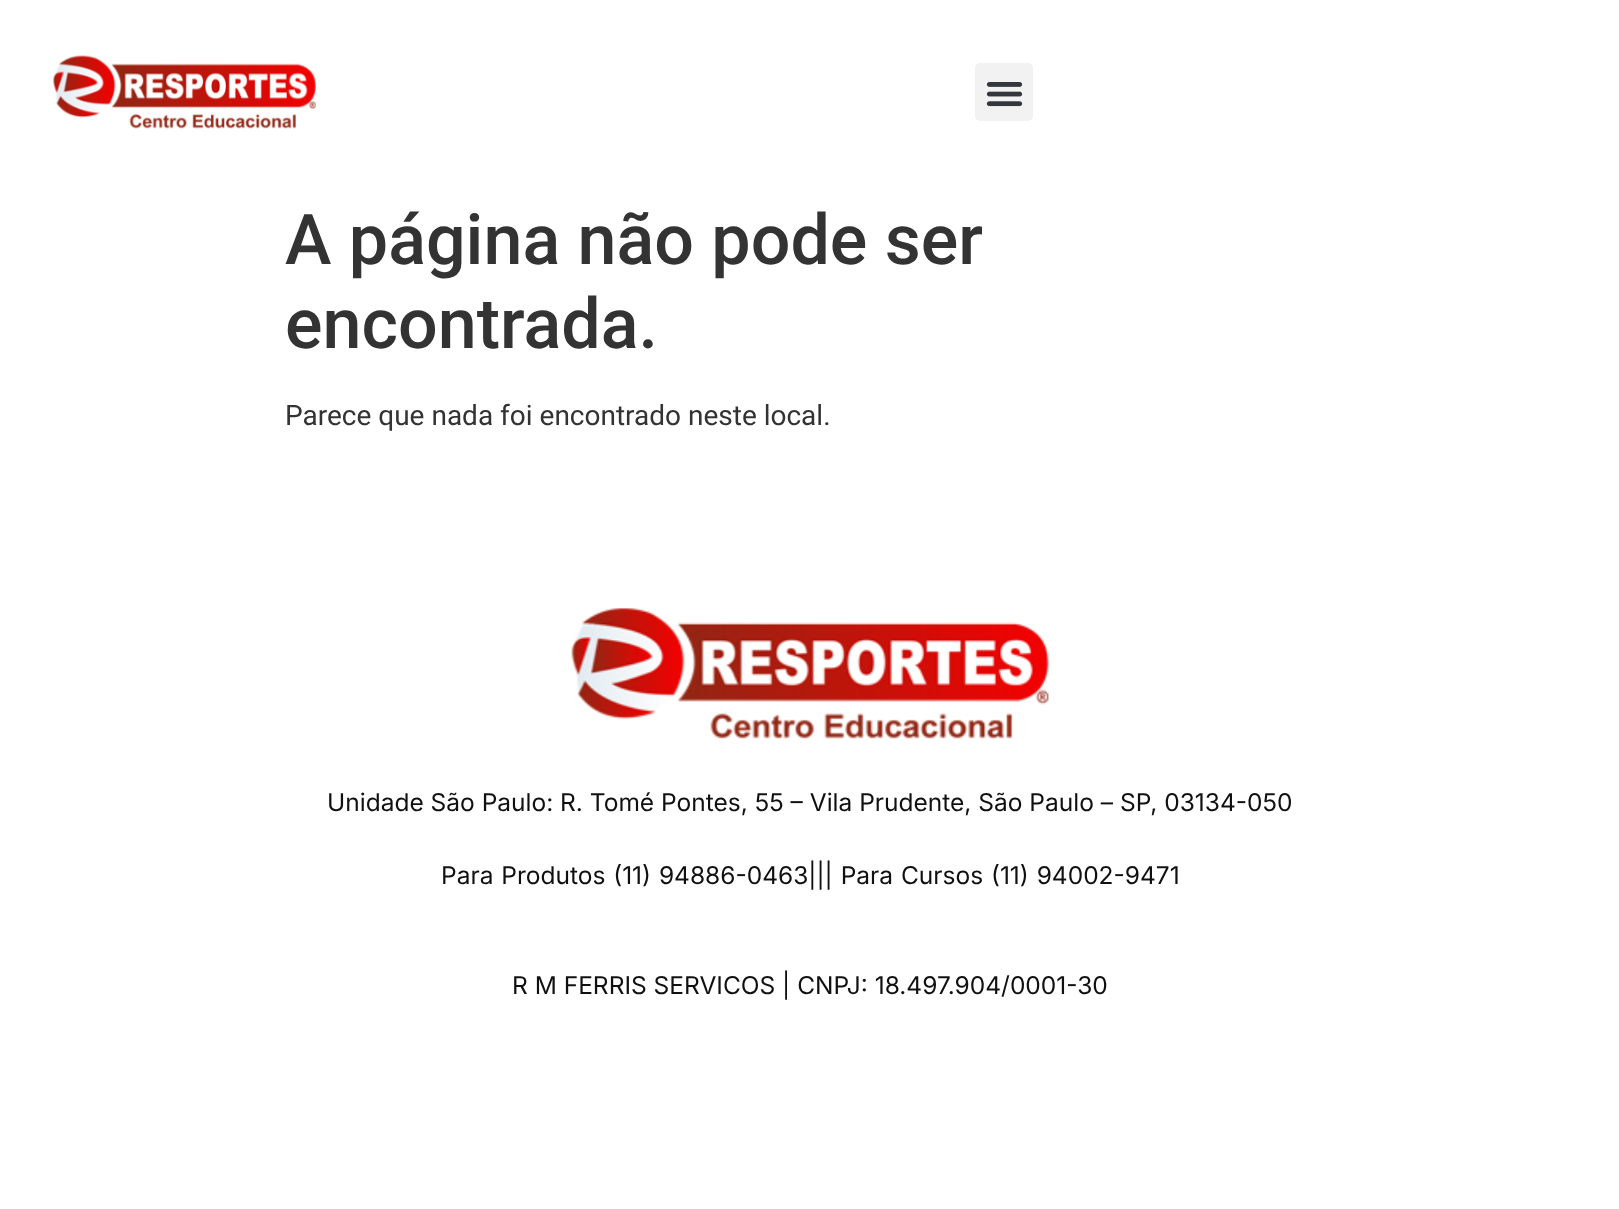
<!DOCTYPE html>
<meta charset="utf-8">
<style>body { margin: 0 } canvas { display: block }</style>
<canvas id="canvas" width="1619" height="1209"></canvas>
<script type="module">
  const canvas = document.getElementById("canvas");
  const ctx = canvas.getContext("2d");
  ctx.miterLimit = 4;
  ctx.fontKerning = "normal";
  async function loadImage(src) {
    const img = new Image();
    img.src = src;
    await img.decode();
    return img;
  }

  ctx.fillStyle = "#ffffff";
  ctx.fillRect(0, 0, 1619, 1209);
  ctx.drawImage(await loadImage("img1.png"), 53, 55, 263, 74);
  ctx.fillStyle = "#f2f2f2";
  ctx.beginPath();
  ctx.roundRect(975, 63, 58, 58, 5);
  ctx.fill();
  ctx.drawImage(await loadImage("img2.png"), 986, 82, 37, 25);
  ctx.font = "500 70px Roboto";
  ctx.fillStyle = "#333333";
  ctx.fillText("A página não pode ser", 285, 264);
  ctx.fillText("encontrada.", 285, 348);
  ctx.font = "28px Roboto";
  ctx.fillText("Parece que nada foi encontrado neste local.", 285, 425);
  ctx.drawImage(await loadImage("img3.png"), 571, 608, 478, 131);
  ctx.font = "24.5px Inter";
  ctx.fillStyle = "#101010";
  ctx.fillText("Unidade São Paulo: R. Tomé Pontes, 55 – Vila Prudente, São Paulo – SP, 03134-050", 327, 811);
  ctx.wordSpacing = "1px";
  ctx.fillText("Para Produtos (11) 94886-0463||| Para Cursos (11) 94002-9471", 441, 884);
  ctx.wordSpacing = "0px";
  ctx.fillText("R M FERRIS SERVICOS | CNPJ: 18.497.904/0001-30", 512, 994);
</script>
